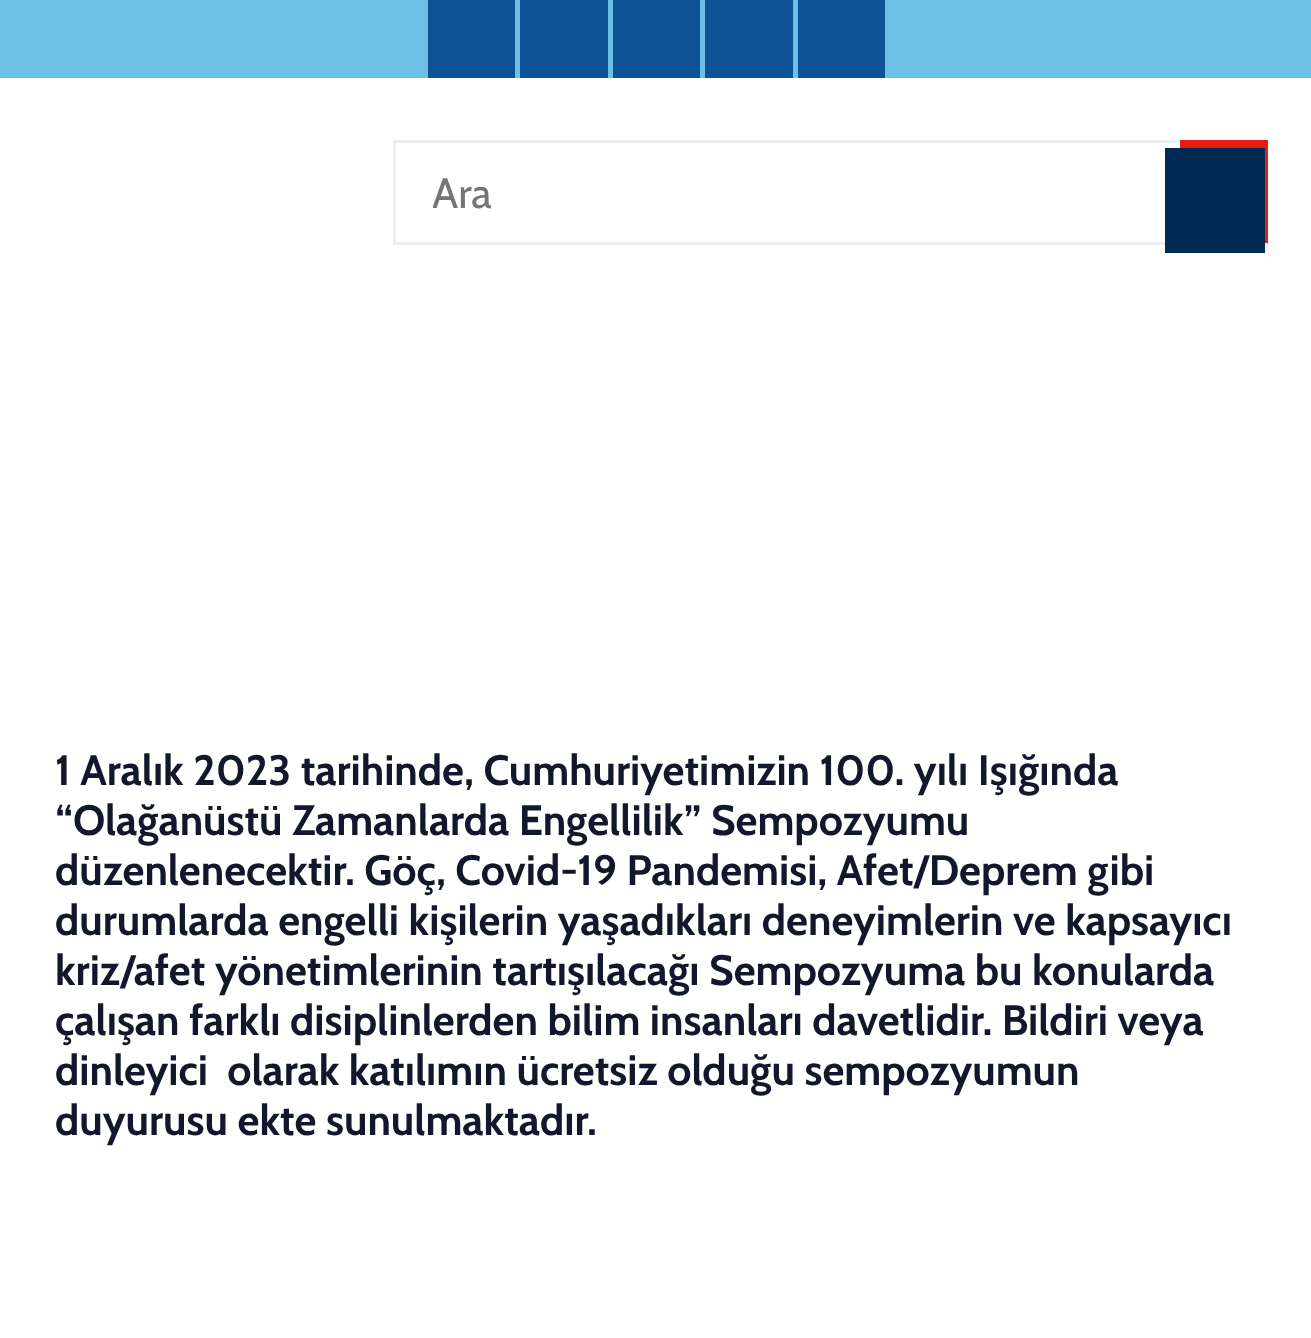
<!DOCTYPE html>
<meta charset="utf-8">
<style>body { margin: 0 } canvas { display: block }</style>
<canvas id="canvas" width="1311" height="1338"></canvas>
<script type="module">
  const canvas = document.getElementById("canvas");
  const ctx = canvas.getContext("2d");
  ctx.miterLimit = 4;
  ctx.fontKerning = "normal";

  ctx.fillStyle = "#ffffff";
  ctx.fillRect(0, 0, 1311, 1338);
  ctx.fillStyle = "#6ec1e4";
  ctx.fillRect(0, 0, 1311, 78);
  ctx.fillStyle = "#0e5296";
  ctx.fillRect(428, 0, 87, 78);
  ctx.fillRect(520, 0, 88, 78);
  ctx.fillRect(613, 0, 87, 78);
  ctx.fillRect(705, 0, 88, 78);
  ctx.fillRect(798, 0, 87, 78);
  ctx.strokeStyle = "#ebeef2";
  ctx.lineWidth = 3;
  ctx.strokeRect(394.5, 141.5, 872, 102);
  ctx.save();
  ctx.beginPath();
  ctx.rect(433, 168, 795, 50);
  ctx.clip();
  ctx.font = "42.5px Cabin";
  ctx.fillStyle = "#757575";
  ctx.fillText("Ara", 432, 208);
  ctx.restore();
  ctx.fillStyle = "#e81c12";
  ctx.fillRect(1180, 140, 88, 103);
  ctx.fillStyle = "#002a54";
  ctx.fillRect(1165, 148, 100, 105);
  ctx.font = "bold 42.5px Cabin";
  ctx.fillStyle = "#12172b";
  ctx.fillText("1 Aralık 2023 tarihinde, Cumhuriyetimizin 100. yılı Işığında", 55, 785);
  ctx.fillText("“Olağanüstü Zamanlarda Engellilik” Sempozyumu", 55, 835);
  ctx.fillText("düzenlenecektir. Göç, Covid-19 Pandemisi, Afet/Deprem gibi", 55, 885);
  ctx.fillText("durumlarda engelli kişilerin yaşadıkları deneyimlerin ve kapsayıcı", 55, 935);
  ctx.fillText("kriz/afet yönetimlerinin tartışılacağı Sempozyuma bu konularda", 55, 985);
  ctx.fillText("çalışan farklı disiplinlerden bilim insanları davetlidir. Bildiri veya", 55, 1035);
  ctx.fillText("dinleyici  olarak katılımın ücretsiz olduğu sempozyumun", 55, 1085);
  ctx.fillText("duyurusu ekte sunulmaktadır.", 55, 1135);
</script>
